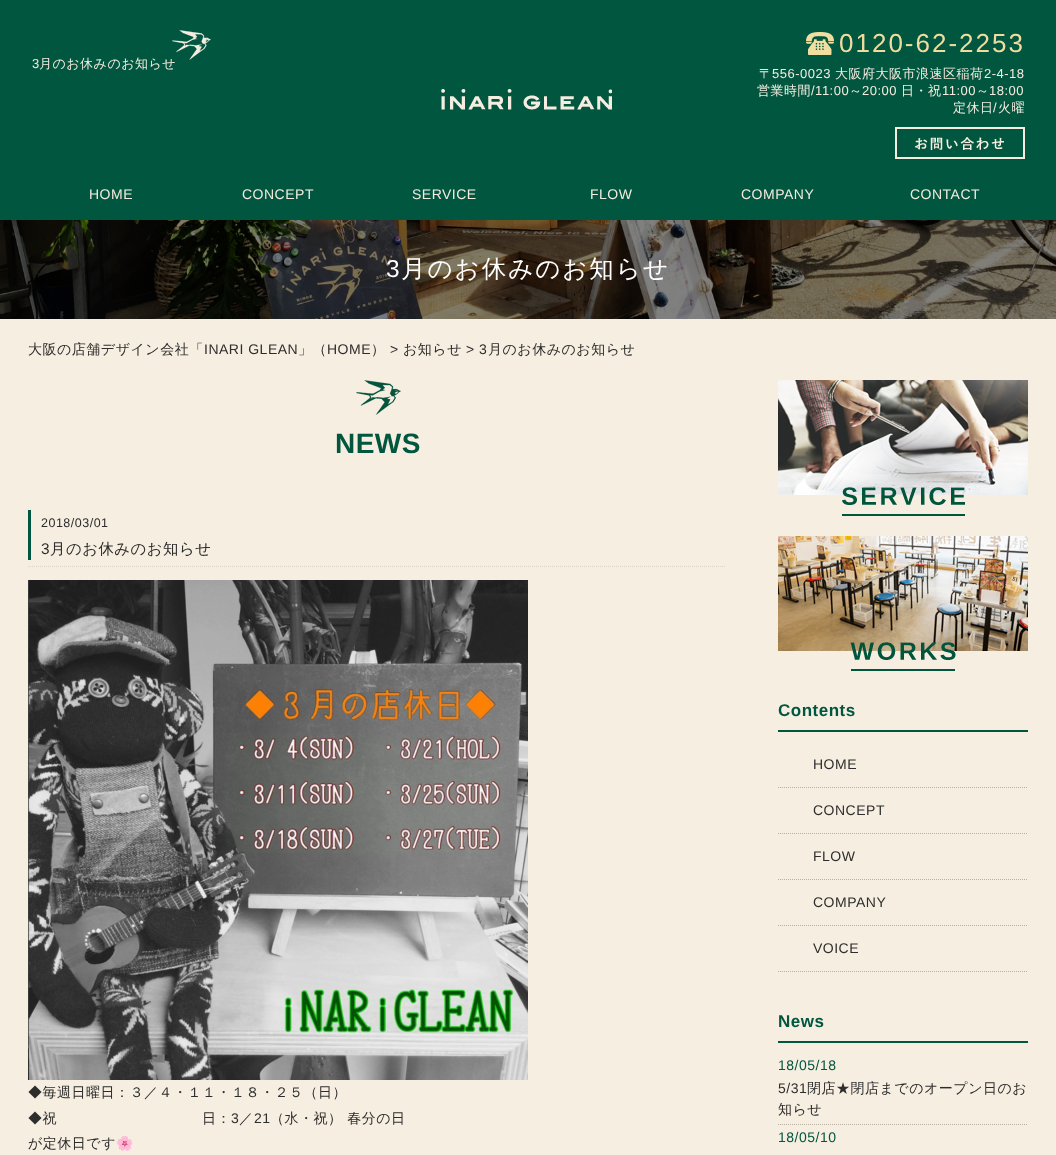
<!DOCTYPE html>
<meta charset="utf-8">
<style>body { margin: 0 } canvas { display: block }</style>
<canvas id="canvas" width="1056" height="1155"></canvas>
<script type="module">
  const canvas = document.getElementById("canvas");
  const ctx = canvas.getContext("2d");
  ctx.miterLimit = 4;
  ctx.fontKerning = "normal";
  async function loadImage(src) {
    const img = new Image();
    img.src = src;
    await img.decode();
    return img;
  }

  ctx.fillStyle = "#f6eee0";
  ctx.fillRect(0, 0, 1056, 1155);
  ctx.fillStyle = "#00563f";
  ctx.fillRect(0, 0, 1056, 220);
  ctx.drawImage(await loadImage("img1.png"), 172, 30, 39, 30);
  ctx.letterSpacing = "0.5px";
  ctx.font = "13px Liberation Sans";
  ctx.fillStyle = "#f4ecdf";
  ctx.fillText("3", 32, 68);
  ctx.font = "500 13px WenQuanYi Zen Hei";
  ctx.fillText("月のお休みのお知らせ", 39, 68);
  ctx.drawImage(await loadImage("img2.png"), 806, 32, 28, 23);
  ctx.letterSpacing = "2px";
  ctx.font = "26px Liberation Sans";
  ctx.fillStyle = "#f0dc9f";
  ctx.fillText("0120-62-2253", 839, 52);
  ctx.letterSpacing = "0.5px";
  ctx.font = "500 13px WenQuanYi Zen Hei";
  ctx.fillStyle = "#f4ecdf";
  ctx.fillText("〒", 759, 78);
  ctx.font = "13px Liberation Sans";
  ctx.fillText("556-0023", 772, 78);
  ctx.font = "500 13px WenQuanYi Zen Hei";
  ctx.fillText("大阪府大阪市浪速区稲荷", 835, 78);
  ctx.font = "13px Liberation Sans";
  ctx.fillText("2-4-18", 984, 78);
  ctx.font = "500 13px WenQuanYi Zen Hei";
  ctx.fillText("営業時間", 757, 95);
  ctx.font = "13px Liberation Sans";
  ctx.fillText("/11:00", 811, 95);
  ctx.font = "500 13px WenQuanYi Zen Hei";
  ctx.fillText("～", 849, 95);
  ctx.font = "13px Liberation Sans";
  ctx.fillText("20:00", 862, 95);
  ctx.font = "500 13px WenQuanYi Zen Hei";
  ctx.fillText("日・祝", 901, 95);
  ctx.font = "13px Liberation Sans";
  ctx.fillText("11:00", 942, 95);
  ctx.font = "500 13px WenQuanYi Zen Hei";
  ctx.fillText("～", 976, 95);
  ctx.font = "13px Liberation Sans";
  ctx.fillText("18:00", 989, 95);
  ctx.font = "500 13px WenQuanYi Zen Hei";
  ctx.fillText("定休日 火曜", 953, 112);
  ctx.font = "13px Liberation Sans";
  ctx.fillText("/", 993, 112);
  ctx.drawImage(await loadImage("img3.png"), 895, 127, 130, 32);
  ctx.drawImage(await loadImage("img4.png"), 441, 89, 171, 21);
  ctx.font = "14px Liberation Sans";
  ctx.fillText("HOME", 89, 199);
  ctx.fillText("CONCEPT", 242, 199);
  ctx.fillText("SERVICE", 412, 199);
  ctx.fillText("FLOW", 590, 199);
  ctx.fillText("COMPANY", 741, 199);
  ctx.fillText("CONTACT", 910, 199);
  ctx.drawImage(await loadImage("img5.png"), 0, 220, 1056, 99);
  ctx.letterSpacing = "2px";
  ctx.font = "24.5px Liberation Sans";
  ctx.fillStyle = "#ffffff";
  ctx.fillText("3", 386, 277);
  ctx.font = "500 24.5px WenQuanYi Zen Hei";
  ctx.fillText("月のお休みのお知らせ", 401, 277);
  ctx.letterSpacing = "0.5px";
  ctx.font = "500 14px WenQuanYi Zen Hei";
  ctx.fillStyle = "#2d2d2d";
  ctx.fillText("大阪の店舗デザイン会社「", 28, 354);
  ctx.font = "14px Liberation Sans";
  ctx.fillText("INARI GLEAN", 204, 354);
  ctx.font = "500 14px WenQuanYi Zen Hei";
  ctx.fillText("」（", 298, 354);
  ctx.font = "14px Liberation Sans";
  ctx.fillText("HOME", 327, 354);
  ctx.font = "500 14px WenQuanYi Zen Hei";
  ctx.fillText("）", 371, 354);
  ctx.font = "14px Liberation Sans";
  ctx.fillText(">", 390, 354);
  ctx.font = "500 14px WenQuanYi Zen Hei";
  ctx.fillText("お知らせ", 403, 354);
  ctx.font = "14px Liberation Sans";
  ctx.fillText("> 3", 466, 354);
  ctx.font = "500 14px WenQuanYi Zen Hei";
  ctx.fillText("月のお休みのお知らせ", 488, 354);
  ctx.drawImage(await loadImage("img6.png"), 356, 380, 45, 35);
  ctx.font = "28px Ramabhadra";
  ctx.fillStyle = "#00563f";
  ctx.fillText("NEWS", 335, 453);
  ctx.fillRect(28, 510, 3, 50);
  ctx.font = "12.5px Liberation Sans";
  ctx.fillStyle = "#2d2d2d";
  ctx.fillText("2018/03/01", 41, 527);
  ctx.font = "15.4px Liberation Sans";
  ctx.fillText("3", 41, 554);
  ctx.font = "500 15.4px WenQuanYi Zen Hei";
  ctx.fillText("月のお休みのお知らせ", 50, 554);
  ctx.beginPath();
  ctx.moveTo(28, 566.5);
  ctx.lineTo(725, 566.5);
  ctx.strokeStyle = "#ddd6c8";
  ctx.setLineDash([1, 1]);
  ctx.stroke();
  ctx.drawImage(await loadImage("img7.png"), 28, 580, 500, 500);
  ctx.font = "500 14px WenQuanYi Zen Hei";
  ctx.fillText("◆毎週日曜日：３／４・１１・１８・２５（日）", 28, 1097);
  ctx.fillText("◆祝　　　　　　　　　　日：", 28, 1123);
  ctx.font = "14px Liberation Sans";
  ctx.fillText("3", 231, 1123);
  ctx.font = "500 14px WenQuanYi Zen Hei";
  ctx.fillText("／", 239, 1123);
  ctx.font = "14px Liberation Sans";
  ctx.fillText("21", 254, 1123);
  ctx.font = "500 14px WenQuanYi Zen Hei";
  ctx.fillText("（水・祝） 春分の日", 270, 1123);
  ctx.fillText("が定休日です", 28, 1148);
  ctx.font = "14px Noto Color Emoji";
  ctx.fillText("🌸", 116, 1148);
  ctx.drawImage(await loadImage("img8.png"), 778, 380, 250, 136);
  ctx.drawImage(await loadImage("img9.png"), 778, 536, 250, 135);
  ctx.fillStyle = "#00563f";
  ctx.fillRect(778, 730, 250, 2);
  ctx.font = "bold 17px Liberation Sans";
  ctx.fillText("Contents", 778, 716);
  ctx.beginPath();
  ctx.moveTo(778, 787.5);
  ctx.lineTo(1028, 787.5);
  ctx.strokeStyle = "#b6afa1";
  ctx.stroke();
  ctx.font = "14px Liberation Sans";
  ctx.fillStyle = "#2d2d2d";
  ctx.fillText("HOME", 813, 769);
  ctx.beginPath();
  ctx.moveTo(778, 833.5);
  ctx.lineTo(1028, 833.5);
  ctx.stroke();
  ctx.fillText("CONCEPT", 813, 815);
  ctx.beginPath();
  ctx.moveTo(778, 879.5);
  ctx.lineTo(1028, 879.5);
  ctx.stroke();
  ctx.fillText("FLOW", 813, 861);
  ctx.beginPath();
  ctx.moveTo(778, 925.5);
  ctx.lineTo(1028, 925.5);
  ctx.stroke();
  ctx.fillText("COMPANY", 813, 907);
  ctx.beginPath();
  ctx.moveTo(778, 971.5);
  ctx.lineTo(1028, 971.5);
  ctx.stroke();
  ctx.fillText("VOICE", 813, 953);
  ctx.fillStyle = "#00563f";
  ctx.fillRect(778, 1041, 250, 2);
  ctx.font = "bold 17px Liberation Sans";
  ctx.fillText("News", 778, 1027);
  ctx.beginPath();
  ctx.moveTo(778, 1124.5);
  ctx.lineTo(1028, 1124.5);
  ctx.stroke();
  ctx.font = "14px Liberation Sans";
  ctx.fillText("18/05/18", 778, 1070);
  ctx.fillStyle = "#2d2d2d";
  ctx.fillText("5/31", 778, 1093);
  ctx.font = "500 14px WenQuanYi Zen Hei";
  ctx.fillText("閉店★閉店までのオープン日のお", 807, 1093);
  ctx.fillText("知らせ", 778, 1114);
  ctx.font = "14px Liberation Sans";
  ctx.fillStyle = "#00563f";
  ctx.fillText("18/05/10", 778, 1142);
</script>
